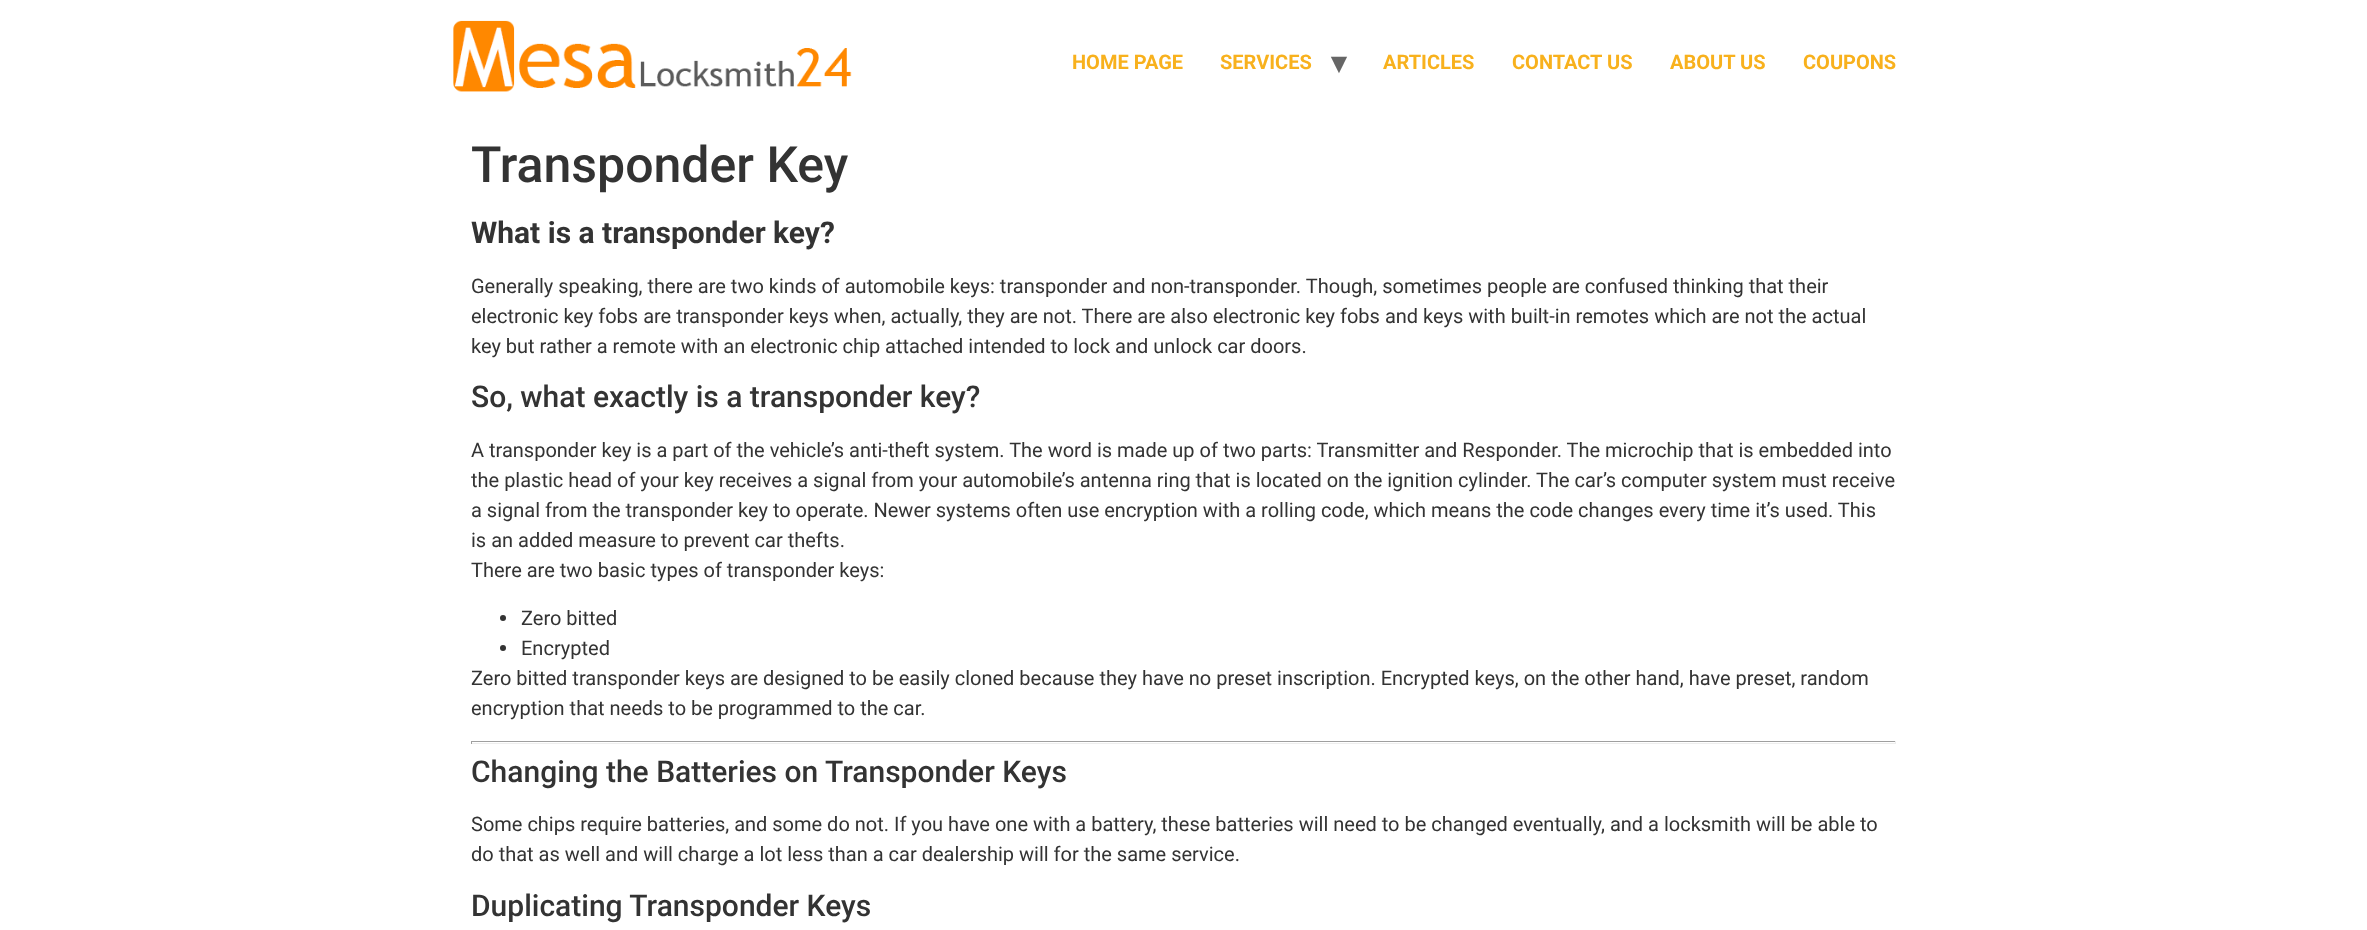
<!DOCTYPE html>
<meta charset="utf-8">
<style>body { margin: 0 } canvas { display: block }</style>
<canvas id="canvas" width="2367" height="930"></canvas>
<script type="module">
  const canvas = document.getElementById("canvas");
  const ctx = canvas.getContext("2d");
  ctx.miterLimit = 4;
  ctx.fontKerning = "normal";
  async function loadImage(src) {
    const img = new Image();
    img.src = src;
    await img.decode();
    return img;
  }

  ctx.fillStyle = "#ffffff";
  ctx.fillRect(0, 0, 2367, 930);
  ctx.drawImage(await loadImage("img1.png"), 453, 20, 399, 72);
  ctx.font = "bold 20px Roboto";
  ctx.fillStyle = "#f8b11d";
  ctx.fillText("HOME PAGE", 1072, 69);
  ctx.fillText("SERVICES", 1220, 69);
  ctx.font = "bold 30px DejaVu Sans";
  ctx.fillStyle = "#666666";
  ctx.fillText("▾", 1331, 73);
  ctx.font = "bold 20px Roboto";
  ctx.fillStyle = "#f8b11d";
  ctx.fillText("ARTICLES", 1383, 69);
  ctx.fillText("CONTACT US", 1512, 69);
  ctx.fillText("ABOUT US", 1670, 69);
  ctx.fillText("COUPONS", 1803, 69);
  ctx.font = "500 50px Roboto";
  ctx.fillStyle = "#333333";
  ctx.fillText("Transponder Key", 471, 182);
  ctx.font = "bold 30px Roboto";
  ctx.fillText("What is a transponder key?", 471, 243);
  ctx.font = "20px Roboto";
  ctx.fillText("Generally speaking, there are two kinds of automobile keys: transponder and non-transponder. Though, sometimes people are confused thinking that their", 471, 293);
  ctx.fillText("electronic key fobs are transponder keys when, actually, they are not. There are also electronic key fobs and keys with built-in remotes which are not the actual", 471, 323);
  ctx.fillText("key but rather a remote with an electronic chip attached intended to lock and unlock car doors.", 471, 353);
  ctx.font = "500 30px Roboto";
  ctx.fillText("So, what exactly is a transponder key?", 471, 407);
  ctx.font = "20px Roboto";
  ctx.fillText("A transponder key is a part of the vehicle’s anti-theft system. The word is made up of two parts: Transmitter and Responder. The microchip that is embedded into", 471, 457);
  ctx.fillText("the plastic head of your key receives a signal from your automobile’s antenna ring that is located on the ignition cylinder. The car’s computer system must receive", 471, 487);
  ctx.fillText("a signal from the transponder key to operate. Newer systems often use encryption with a rolling code, which means the code changes every time it’s used. This", 471, 517);
  ctx.fillText("is an added measure to prevent car thefts.", 471, 547);
  ctx.fillText("There are two basic types of transponder keys:", 471, 577);
  ctx.beginPath();
  ctx.arc(503, 618, 3, 0, Math.PI * 2);
  ctx.fill();
  ctx.fillText("Zero bitted", 521, 625);
  ctx.beginPath();
  ctx.arc(503, 648, 3, 0, Math.PI * 2);
  ctx.fill();
  ctx.fillText("Encrypted", 521, 655);
  ctx.fillText("Zero bitted transponder keys are designed to be easily cloned because they have no preset inscription. Encrypted keys, on the other hand, have preset, random", 471, 685);
  ctx.fillText("encryption that needs to be programmed to the car.", 471, 715);
  ctx.fillStyle = "#9f9f9f";
  ctx.fillRect(471, 741, 1425, 1);
  ctx.fillStyle = "#eeeeee";
  ctx.fillRect(1895, 741, 1, 3);
  ctx.fillRect(471, 743, 1425, 1);
  ctx.fillStyle = "#9f9f9f";
  ctx.fillRect(471, 741, 1, 3);
  ctx.font = "500 30px Roboto";
  ctx.fillStyle = "#333333";
  ctx.fillText("Changing the Batteries on Transponder Keys", 471, 782);
  ctx.font = "20px Roboto";
  ctx.fillText("Some chips require batteries, and some do not. If you have one with a battery, these batteries will need to be changed eventually, and a locksmith will be able to", 471, 831);
  ctx.fillText("do that as well and will charge a lot less than a car dealership will for the same service.", 471, 861);
  ctx.font = "500 30px Roboto";
  ctx.fillText("Duplicating Transponder Keys", 471, 916);
</script>
